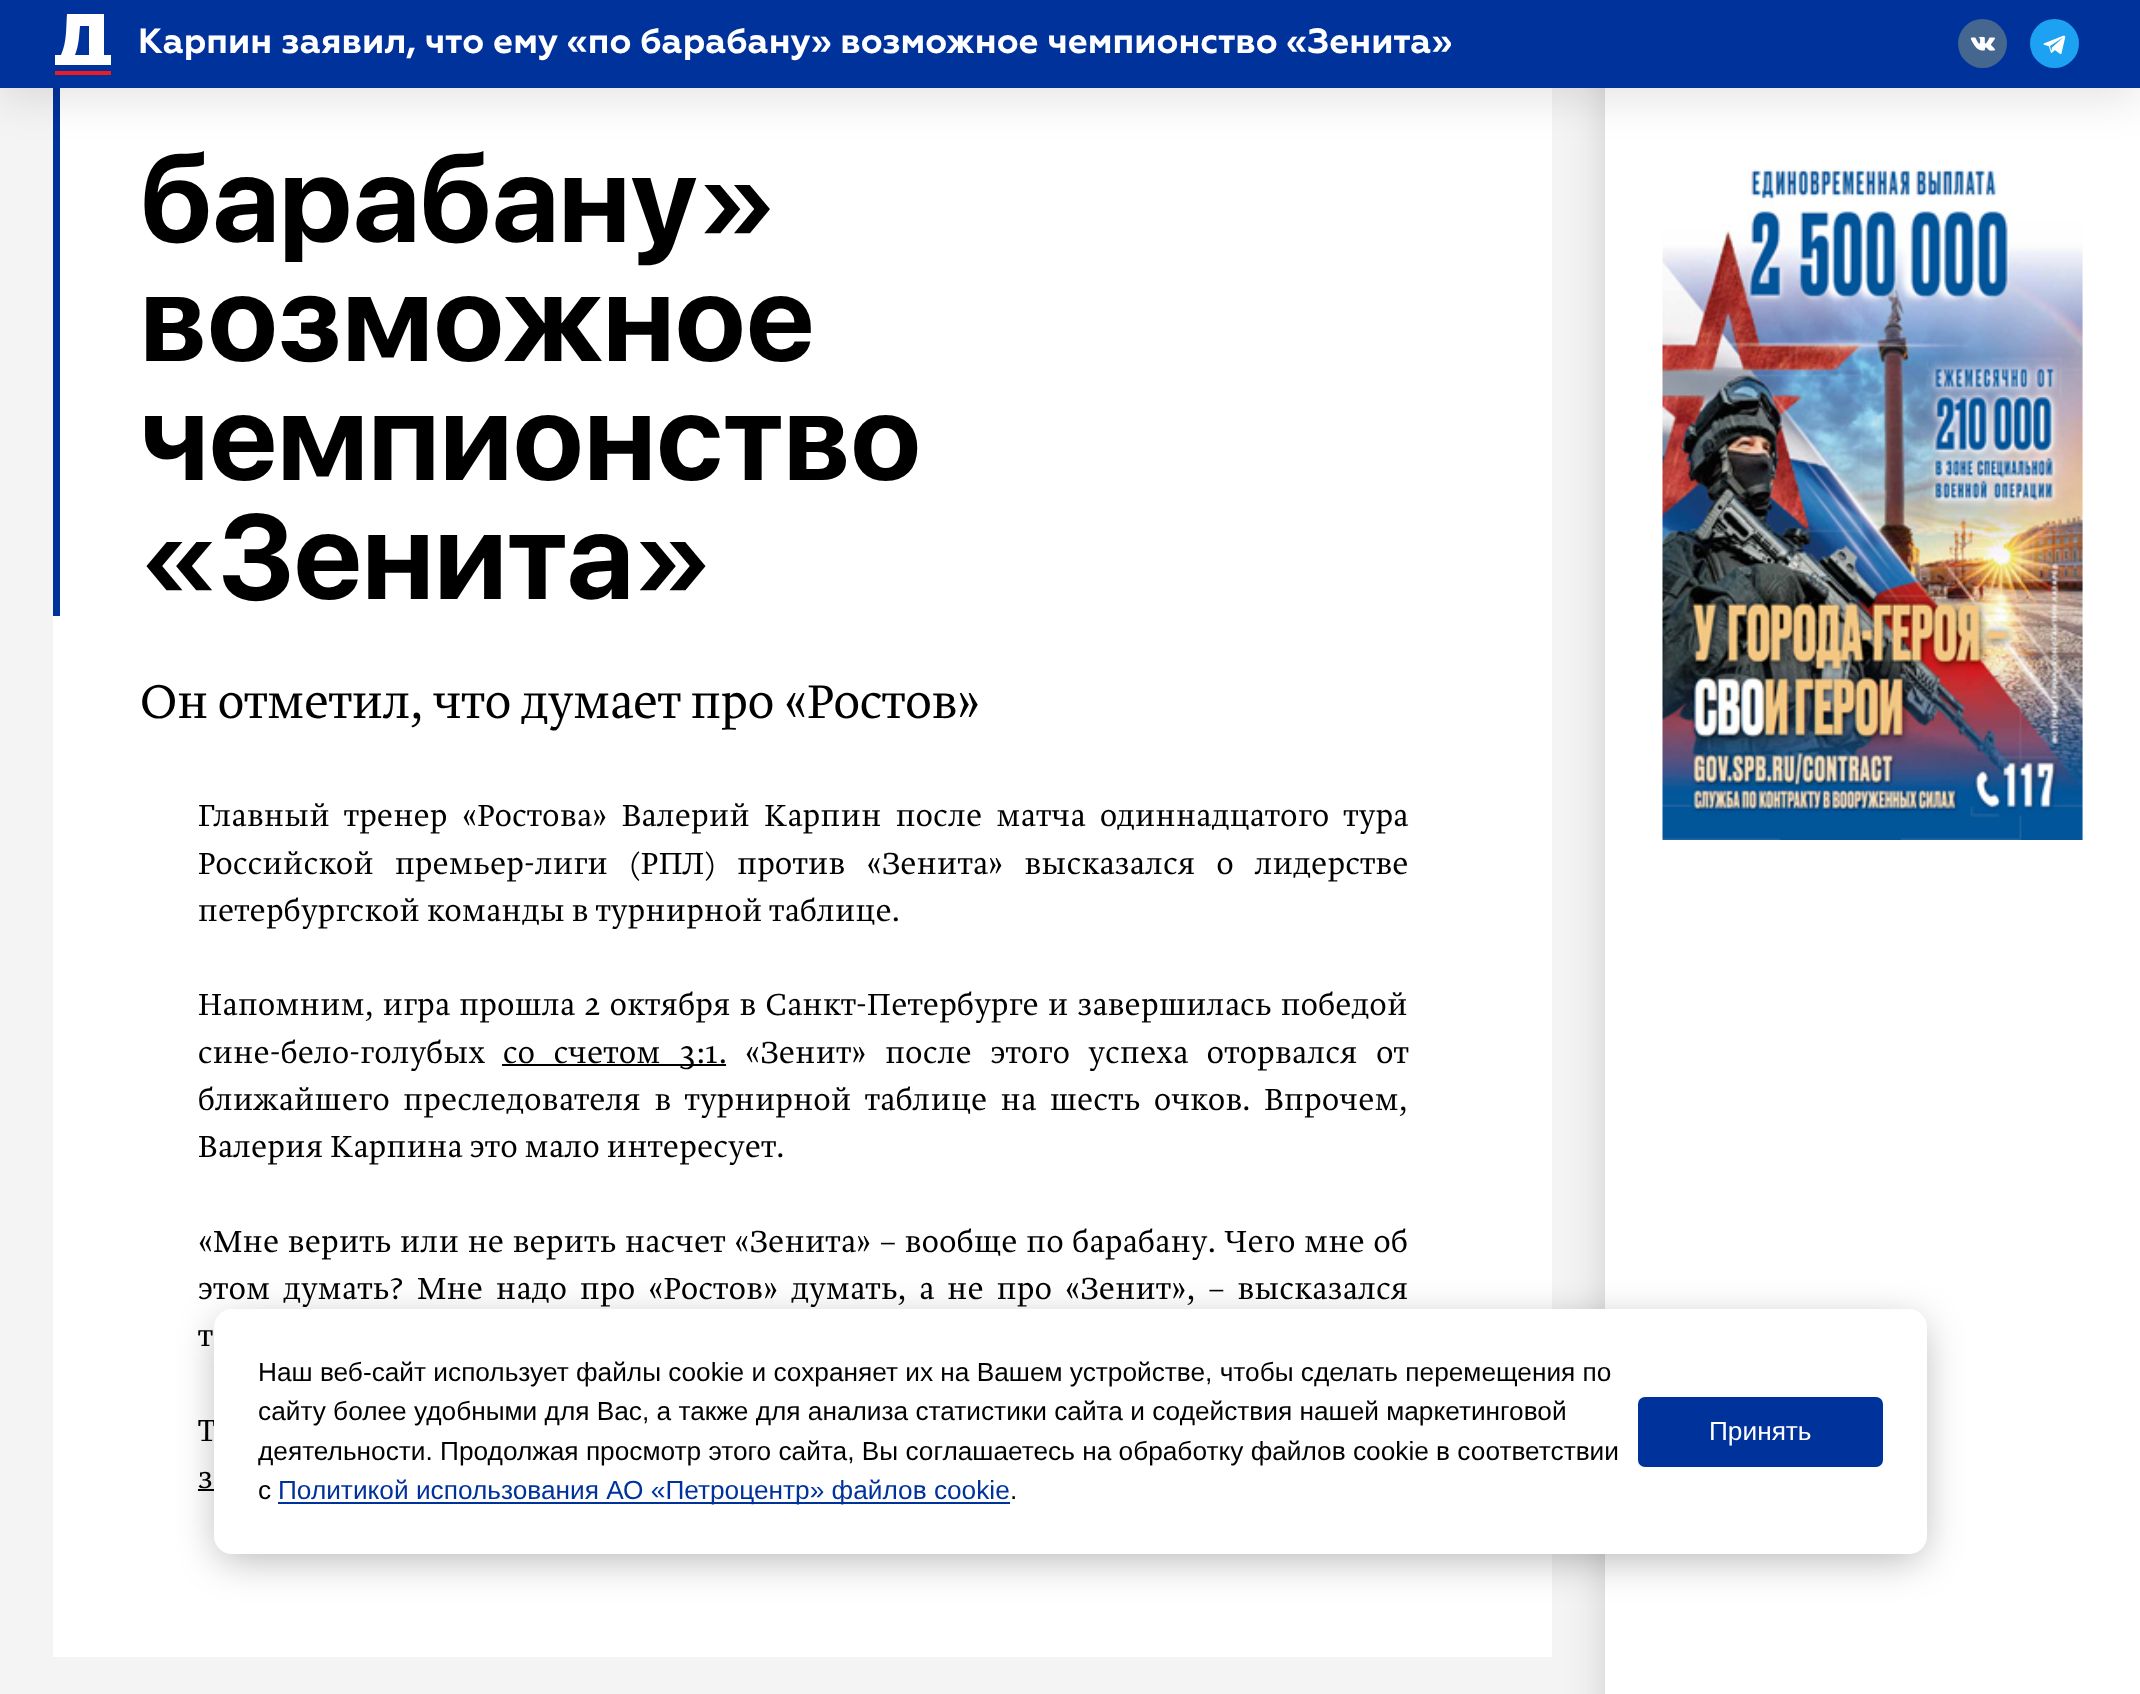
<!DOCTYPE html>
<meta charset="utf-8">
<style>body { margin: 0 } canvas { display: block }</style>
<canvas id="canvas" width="2140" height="1694"></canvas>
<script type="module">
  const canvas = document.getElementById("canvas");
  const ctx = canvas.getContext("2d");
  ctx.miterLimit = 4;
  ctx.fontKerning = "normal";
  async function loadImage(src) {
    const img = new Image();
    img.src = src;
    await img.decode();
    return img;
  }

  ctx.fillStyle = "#f4f4f4";
  ctx.fillRect(0, 0, 2140, 1694);
  ctx.fillStyle = "#ffffff";
  ctx.fillRect(53, 88, 1499, 1569);
  ctx.fillStyle = "#00329c";
  ctx.fillRect(53, 88, 7, 528);
  ctx.fillStyle = "rgba(0, 0, 0, 0.15)";
  ctx.filter = "blur(21px)";
  ctx.beginPath();
  ctx.rect(1605, -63, 535, 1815);
  ctx.fill();
  ctx.filter = "none";
  ctx.fillStyle = "#ffffff";
  ctx.fillRect(1605, 88, 535, 1606);
  ctx.fillStyle = "rgba(0, 0, 0, 0.1)";
  ctx.filter = "blur(21px)";
  ctx.beginPath();
  ctx.rect(0, 12, 2140, 88);
  ctx.fill();
  ctx.filter = "none";
  ctx.fillStyle = "#00329c";
  ctx.fillRect(0, 0, 2140, 88);
  ctx.fillStyle = "#ffffff";
  ctx.beginPath();
  ctx.moveTo(89, 55);
  ctx.lineTo(75, 55);
  ctx.bezierCurveTo(79, 45, 79, 36, 80, 26);
  ctx.lineTo(89, 26);
  ctx.closePath();
  ctx.moveTo(104, 55);
  ctx.lineTo(104, 14);
  ctx.lineTo(67, 14);
  ctx.bezierCurveTo(66, 27, 67, 42, 61, 55);
  ctx.lineTo(55, 55);
  ctx.lineTo(55, 65);
  ctx.lineTo(111, 65);
  ctx.lineTo(111, 55);
  ctx.closePath();
  ctx.fill();
  ctx.fillStyle = "#ed1c24";
  ctx.fillRect(55, 71, 56, 4);
  ctx.font = "bold 35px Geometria";
  ctx.fillStyle = "#ffffff";
  ctx.fillText("Карпин заявил, что ему «по барабану» возможное чемпионство «Зенита»", 138, 53);
  ctx.fillStyle = "#45668e";
  ctx.beginPath();
  ctx.arc(1982.5, 43.5, 24.5, 0, Math.PI * 2);
  ctx.fill();
  ctx.drawImage(await loadImage("img1.png"), 1971, 36, 24, 15);
  ctx.fillStyle = "#1da1f2";
  ctx.beginPath();
  ctx.arc(2054.5, 43.5, 24.5, 0, Math.PI * 2);
  ctx.fill();
  ctx.drawImage(await loadImage("img2.png"), 2043, 35, 23, 20);
  ctx.font = "bold 119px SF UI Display";
  ctx.fillStyle = "#000000";
  ctx.fillText("барабану»", 140, 242);
  ctx.fillText("возможное", 140, 361);
  ctx.fillText("чемпионство", 140, 480);
  ctx.fillText("«Зенита»", 140, 599);
  ctx.font = "300 49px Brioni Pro";
  ctx.fillText("Он отметил, что думает про «Ростов»", 140, 718);
  ctx.letterSpacing = "0.53px";
  ctx.wordSpacing = "7.25px";
  ctx.font = "300 31.5px Brioni Pro";
  ctx.fillText("Главный тренер «Ростова» Валерий Карпин после матча одиннадцатого тура", 198, 826);
  ctx.wordSpacing = "14px";
  ctx.fillText("Российской премьер-лиги (РПЛ) против «Зенита» высказался о лидерстве", 198, 874);
  ctx.wordSpacing = "0px";
  ctx.fillText("петербургской команды в турнирной таблице.", 198, 921);
  ctx.wordSpacing = "2px";
  ctx.fillText("Напомним, игра прошла 2 октября в Санкт-Петербурге и завершилась победой", 198, 1015);
  ctx.wordSpacing = "0px";
  ctx.fillText("сине-бело-голубых", 198, 1063);
  ctx.fillRect(502, 1064, 224, 2);
  ctx.wordSpacing = "11.5px";
  ctx.fillText("со счетом 3:1.", 503, 1063);
  ctx.fillText("«Зенит» после этого успеха оторвался от", 745, 1063);
  ctx.wordSpacing = "6.5px";
  ctx.fillText("ближайшего преследователя в турнирной таблице на шесть очков. Впрочем,", 198, 1110);
  ctx.wordSpacing = "0px";
  ctx.fillText("Валерия Карпина это мало интересует.", 198, 1157);
  ctx.wordSpacing = "1.6px";
  ctx.fillText("«Мне верить или не верить насчет «Зенита» – вообще по барабану. Чего мне об", 198, 1252);
  ctx.wordSpacing = "5.9px";
  ctx.fillText("этом думать? Мне надо про «Ростов» думать, а не про «Зенит», – высказался", 198, 1299);
  ctx.wordSpacing = "0px";
  ctx.fillText("т", 198, 1346);
  ctx.wordSpacing = "3px";
  ctx.fillText("Т", 198, 1441);
  ctx.wordSpacing = "0px";
  ctx.fillText("з", 198, 1488);
  ctx.fillRect(198, 1489, 16, 2);
  ctx.drawImage(await loadImage("img3.png"), 1662, 168, 421, 672);
  ctx.fillStyle = "rgba(0, 0, 0, 0.3)";
  ctx.filter = "blur(20px)";
  ctx.beginPath();
  ctx.roundRect(219, 1323, 1703, 235, 12);
  ctx.fill();
  ctx.filter = "none";
  ctx.fillStyle = "#ffffff";
  ctx.beginPath();
  ctx.roundRect(214, 1309, 1713, 245, 18);
  ctx.fill();
  ctx.letterSpacing = "0px";
  ctx.font = "26.25px Liberation Sans";
  ctx.fillStyle = "#000000";
  ctx.fillText("Наш веб-сайт использует файлы cookie и сохраняет их на Вашем устройстве, чтобы сделать перемещения по", 258, 1381);
  ctx.fillText("сайту более удобными для Вас, а также для анализа статистики сайта и содействия нашей маркетинговой", 258, 1420);
  ctx.fillText("деятельности. Продолжая просмотр этого сайта, Вы соглашаетесь на обработку файлов cookie в соответствии", 258, 1460);
  ctx.fillText("с", 258, 1499);
  ctx.fillStyle = "#00329c";
  ctx.fillRect(278, 1502, 732, 2);
  ctx.fillText("Политикой использования АО «Петроцентр» файлов cookie", 278, 1499);
  ctx.fillStyle = "#000000";
  ctx.fillText(".", 1010, 1499);
  ctx.fillStyle = "#00329c";
  ctx.beginPath();
  ctx.roundRect(1639, 1398, 243, 68, 6);
  ctx.fill();
  ctx.strokeStyle = "#00329c";
  ctx.lineWidth = 2;
  ctx.stroke();
  ctx.fillStyle = "#ffffff";
  ctx.fillText("Принять", 1709, 1440);
</script>
